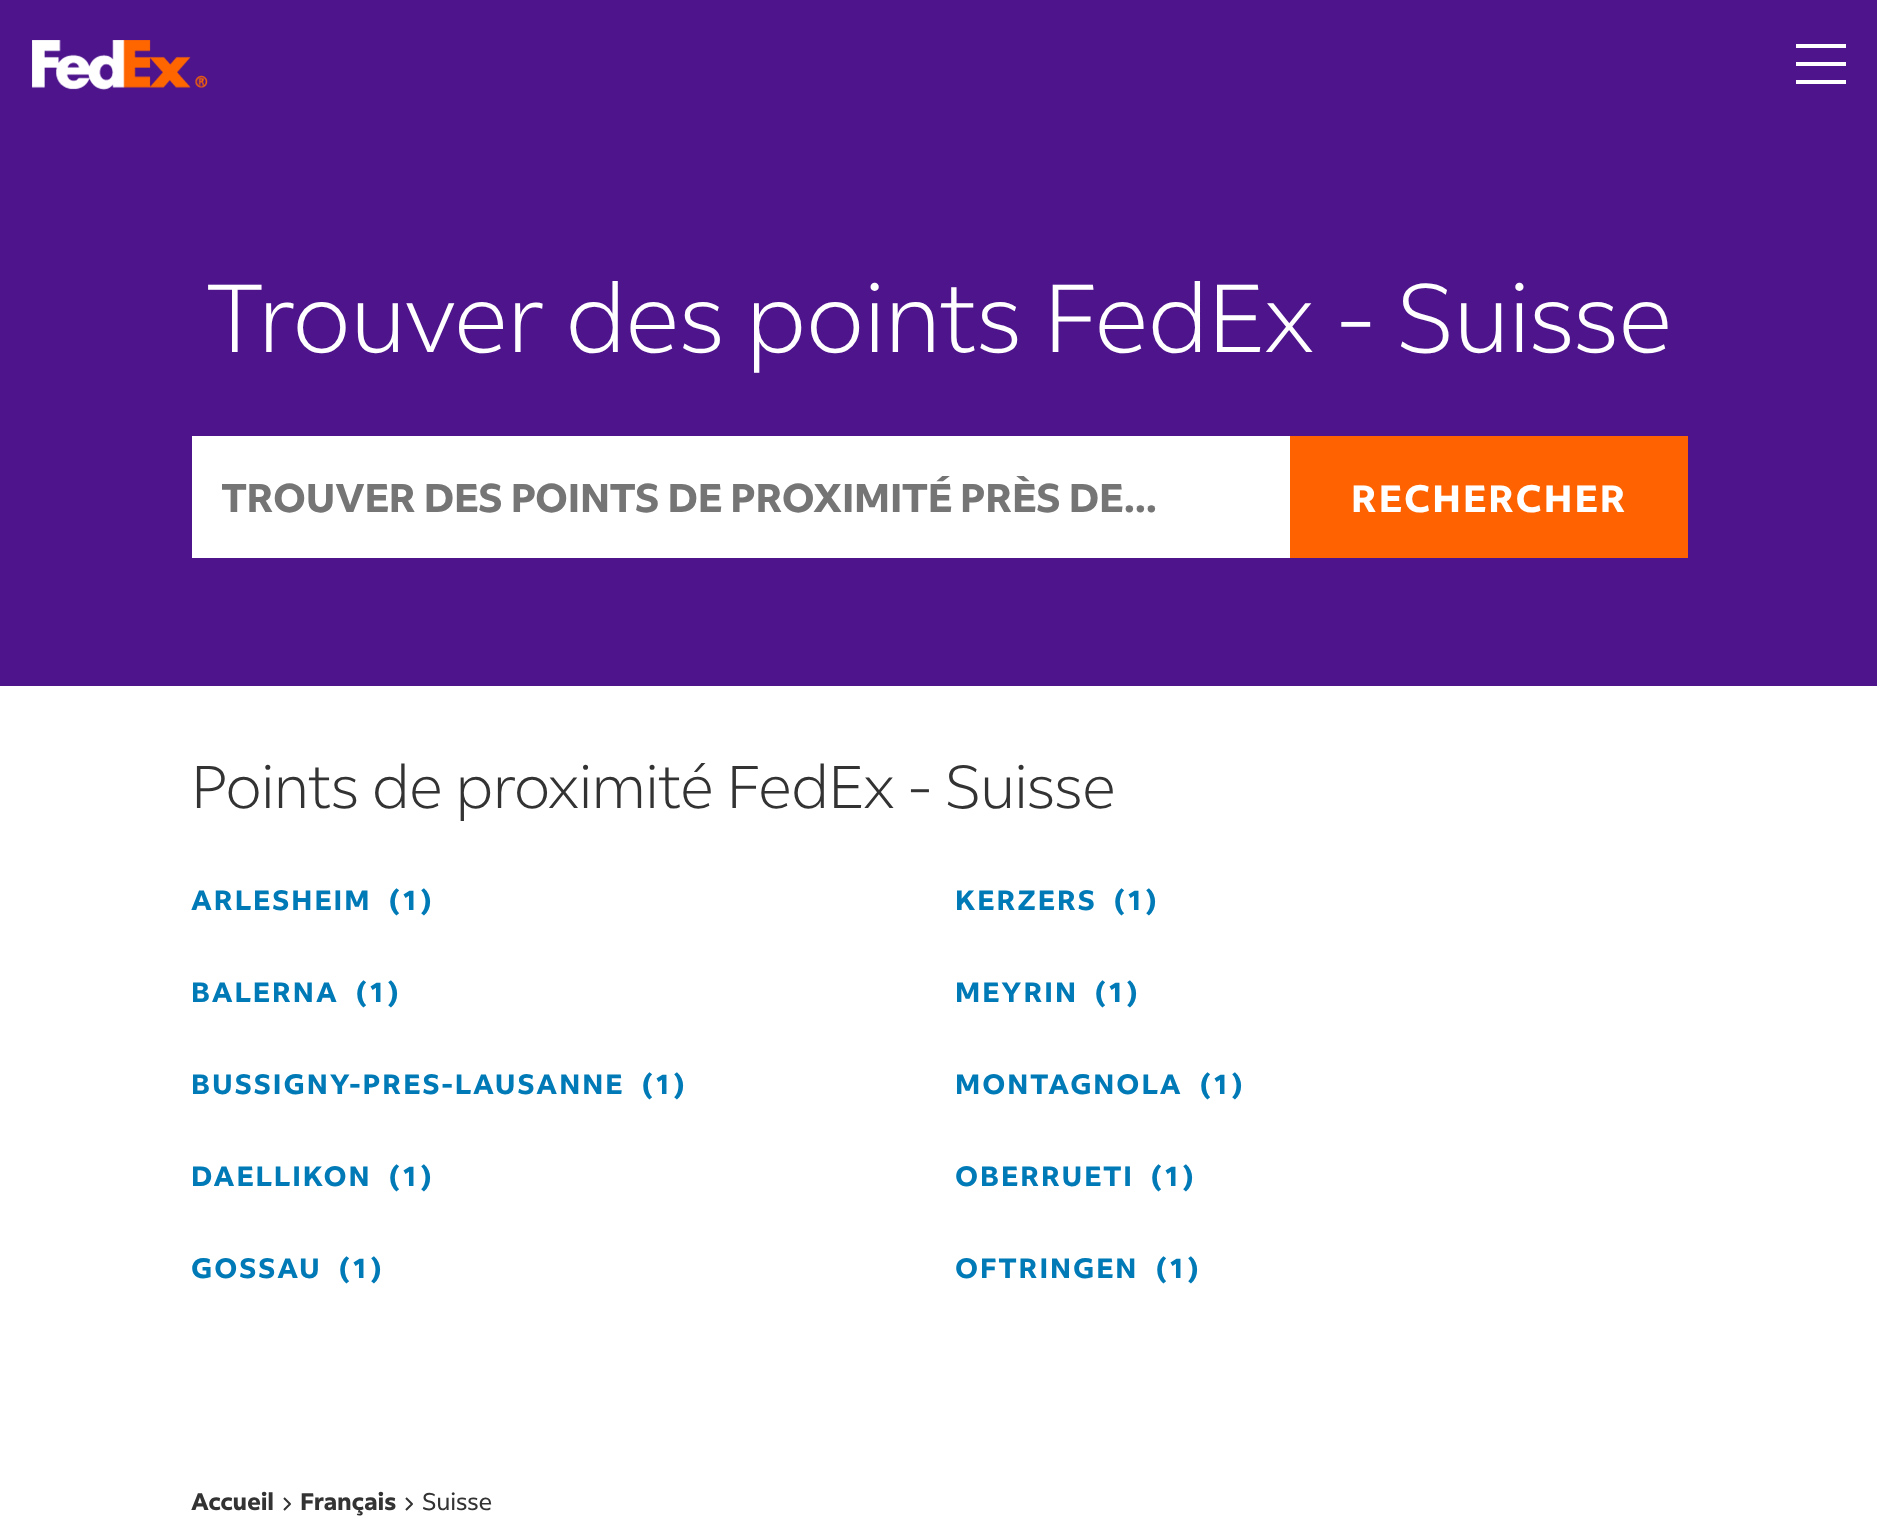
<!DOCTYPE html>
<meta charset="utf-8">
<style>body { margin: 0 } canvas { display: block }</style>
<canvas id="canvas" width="1877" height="1539"></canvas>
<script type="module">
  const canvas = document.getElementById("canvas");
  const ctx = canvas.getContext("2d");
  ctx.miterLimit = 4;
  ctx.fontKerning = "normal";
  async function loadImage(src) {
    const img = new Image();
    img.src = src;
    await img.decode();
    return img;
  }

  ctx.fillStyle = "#ffffff";
  ctx.fillRect(0, 0, 1877, 1539);
  ctx.fillStyle = "#4d148c";
  ctx.fillRect(0, 0, 1877, 686);
  ctx.drawImage(await loadImage("img1.png"), 32, 40, 176, 50);
  ctx.fillStyle = "#ffffff";
  ctx.fillRect(1796, 44, 50, 4);
  ctx.fillRect(1796, 62, 50, 4);
  ctx.fillRect(1796, 80, 50, 4);
  ctx.letterSpacing = "-0.8px";
  ctx.font = "300 96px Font";
  ctx.fillText("Trouver des points FedEx - Suisse", 206, 352);
  ctx.fillRect(192, 436, 1098, 122);
  ctx.save();
  ctx.beginPath();
  ctx.rect(222, 470, 1038, 54);
  ctx.clip();
  ctx.letterSpacing = "-0.2px";
  ctx.font = "bold 40px Font";
  ctx.fillStyle = "#757575";
  ctx.fillText("TROUVER DES POINTS DE PROXIMITÉ PRÈS DE...", 221, 512);
  ctx.restore();
  ctx.fillStyle = "#ff6200";
  ctx.fillRect(1290, 436, 398, 122);
  ctx.letterSpacing = "2px";
  ctx.font = "bold 38px Font";
  ctx.fillStyle = "#ffffff";
  ctx.fillText("RECHERCHER", 1351, 512);
  ctx.letterSpacing = "-0.8px";
  ctx.font = "300 60px Font";
  ctx.fillStyle = "#333333";
  ctx.fillText("Points de proximité FedEx - Suisse", 191, 808);
  ctx.letterSpacing = "2px";
  ctx.font = "bold 28px Font";
  ctx.fillStyle = "#007ab7";
  ctx.fillText("ARLESHEIM", 191, 910);
  ctx.fillText("(1)", 389, 910);
  ctx.fillText("KERZERS", 955, 910);
  ctx.fillText("(1)", 1114, 910);
  ctx.fillText("BALERNA", 191, 1002);
  ctx.fillText("(1)", 356, 1002);
  ctx.fillText("MEYRIN", 955, 1002);
  ctx.fillText("(1)", 1095, 1002);
  ctx.fillText("BUSSIGNY-PRES-LAUSANNE", 191, 1094);
  ctx.fillText("(1)", 642, 1094);
  ctx.fillText("MONTAGNOLA", 955, 1094);
  ctx.fillText("(1)", 1200, 1094);
  ctx.fillText("DAELLIKON", 191, 1186);
  ctx.fillText("(1)", 389, 1186);
  ctx.fillText("OBERRUETI", 955, 1186);
  ctx.fillText("(1)", 1151, 1186);
  ctx.fillText("GOSSAU", 191, 1278);
  ctx.fillText("(1)", 339, 1278);
  ctx.fillText("OFTRINGEN", 955, 1278);
  ctx.fillText("(1)", 1156, 1278);
  ctx.letterSpacing = "-0.2px";
  ctx.font = "bold 24px Font";
  ctx.fillStyle = "#333333";
  ctx.fillText("Accueil", 191, 1510);
  ctx.beginPath();
  ctx.moveTo(284, 1510);
  ctx.lineTo(290, 1504);
  ctx.lineTo(284, 1498);
  ctx.strokeStyle = "#333333";
  ctx.lineWidth = 2;
  ctx.lineJoin = "round";
  ctx.stroke();
  ctx.fillText("Français", 300, 1510);
  ctx.beginPath();
  ctx.moveTo(406, 1510);
  ctx.lineTo(412, 1504);
  ctx.lineTo(406, 1498);
  ctx.stroke();
  ctx.font = "24px Font";
  ctx.fillText("Suisse", 422, 1510);
</script>
